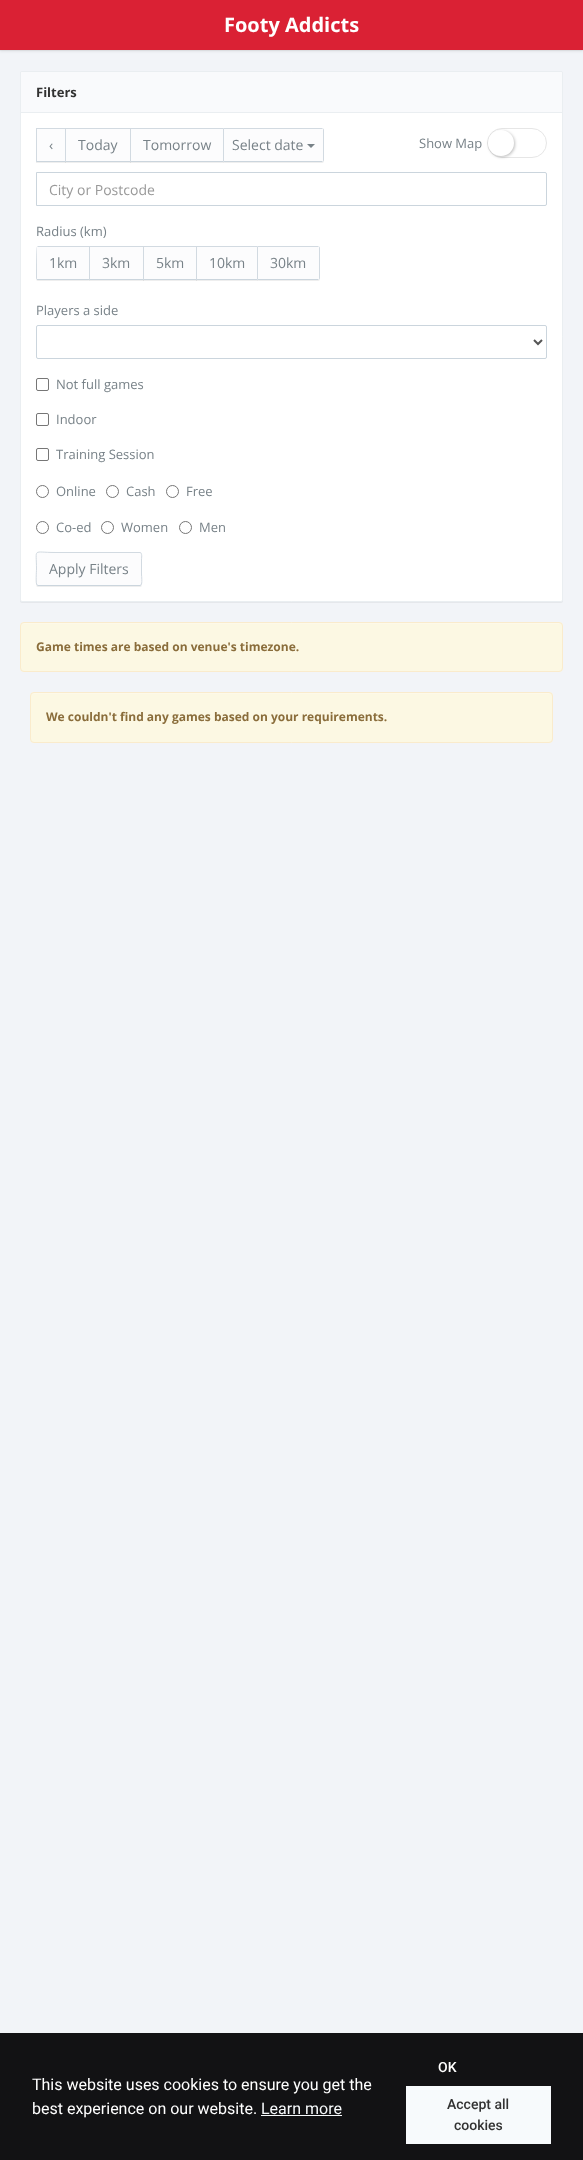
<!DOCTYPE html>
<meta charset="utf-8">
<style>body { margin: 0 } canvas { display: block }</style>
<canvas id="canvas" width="583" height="2160"></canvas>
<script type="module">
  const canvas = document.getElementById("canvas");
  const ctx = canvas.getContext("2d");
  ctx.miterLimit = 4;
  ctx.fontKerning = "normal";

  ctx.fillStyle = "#f2f4f8";
  ctx.fillRect(0, 0, 583, 2160);
  ctx.fillStyle = "#e6e8ec";
  ctx.fillRect(0, 50, 583, 1);
  ctx.fillStyle = "rgba(0, 0, 0, 0.05)";
  ctx.filter = "blur(1px)";
  ctx.beginPath();
  ctx.rect(0, 2, 583, 50);
  ctx.fill();
  ctx.filter = "none";
  ctx.fillStyle = "#da2134";
  ctx.fillRect(0, 0, 583, 50);
  ctx.font = "bold 20px Open Sans";
  ctx.fillStyle = "#ffffff";
  ctx.fillText("Footy Addicts", 224, 32);
  ctx.fillStyle = "rgba(0, 0, 0, 0.05)";
  ctx.filter = "blur(0.5px)";
  ctx.beginPath();
  ctx.roundRect(20, 72, 543, 531, 2);
  ctx.fill();
  ctx.filter = "none";
  ctx.fillStyle = "#ffffff";
  ctx.beginPath();
  ctx.roundRect(20.5, 71.5, 542, 530, 1.5);
  ctx.fill();
  ctx.strokeStyle = "#eaeef1";
  ctx.stroke();
  ctx.fillStyle = "#f9fafc";
  ctx.beginPath();
  ctx.roundRect(21, 72, 541, 41, [2, 2, 0, 0]);
  ctx.fill();
  ctx.fillStyle = "#eaeef1";
  ctx.fillRect(21, 112, 541, 1);
  ctx.font = "bold 13px Open Sans";
  ctx.fillStyle = "#323232";
  ctx.fillText("Filters", 36, 97);
  ctx.fillStyle = "rgba(90, 90, 90, 0.1)";
  ctx.filter = "blur(0.5px)";
  ctx.beginPath();
  ctx.rect(36, 129, 30, 34);
  ctx.fill();
  ctx.filter = "none";
  ctx.fillStyle = "#fcfcfd";
  ctx.fillRect(37, 129, 28, 32);
  ctx.fillStyle = "#d2dae1";
  ctx.fillRect(36, 128, 30, 1);
  ctx.fillStyle = "#cbd5dd";
  ctx.fillRect(36, 161, 30, 1);
  ctx.fillStyle = "#d2dae1";
  ctx.fillRect(36, 128, 1, 34);
  ctx.font = "14px Open Sans";
  ctx.fillStyle = "#788288";
  ctx.fillText("‹", 49, 150);
  ctx.fillStyle = "rgba(90, 90, 90, 0.1)";
  ctx.filter = "blur(0.5px)";
  ctx.beginPath();
  ctx.rect(65, 129, 66, 34);
  ctx.fill();
  ctx.filter = "none";
  ctx.fillStyle = "#fcfcfd";
  ctx.fillRect(66, 129, 64, 32);
  ctx.fillStyle = "#d2dae1";
  ctx.fillRect(65, 128, 66, 1);
  ctx.fillStyle = "#cbd5dd";
  ctx.fillRect(65, 161, 66, 1);
  ctx.fillStyle = "#d2dae1";
  ctx.fillRect(65, 128, 1, 34);
  ctx.fillStyle = "#788288";
  ctx.fillText("Today", 78, 150);
  ctx.fillStyle = "rgba(90, 90, 90, 0.1)";
  ctx.filter = "blur(0.5px)";
  ctx.beginPath();
  ctx.rect(130, 129, 94, 34);
  ctx.fill();
  ctx.filter = "none";
  ctx.fillStyle = "#fcfcfd";
  ctx.fillRect(131, 129, 92, 32);
  ctx.fillStyle = "#d2dae1";
  ctx.fillRect(130, 128, 94, 1);
  ctx.fillStyle = "#cbd5dd";
  ctx.fillRect(130, 161, 94, 1);
  ctx.fillStyle = "#d2dae1";
  ctx.fillRect(130, 128, 1, 34);
  ctx.fillStyle = "#788288";
  ctx.fillText("Tomorrow", 143, 150);
  ctx.fillStyle = "rgba(90, 90, 90, 0.1)";
  ctx.filter = "blur(0.5px)";
  ctx.beginPath();
  ctx.roundRect(223, 129, 101, 34, 2);
  ctx.fill();
  ctx.filter = "none";
  ctx.fillStyle = "#fcfcfd";
  ctx.beginPath();
  ctx.roundRect(223, 128, 101, 34, [0, 2, 2, 0]);
  ctx.fill();
  ctx.fillStyle = "#d2dae1";
  ctx.beginPath();
  ctx.moveTo(223, 128);
  ctx.lineTo(224, 129);
  ctx.lineTo(323, 129);
  ctx.lineTo(322, 128);
  ctx.closePath();
  ctx.fill();
  ctx.beginPath();
  ctx.moveTo(324, 160);
  ctx.lineTo(324, 130);
  ctx.lineTo(323.5, 128.5);
  ctx.lineTo(323, 129);
  ctx.lineTo(323, 161);
  ctx.lineTo(323.5, 161.5);
  ctx.closePath();
  ctx.fill();
  ctx.fillStyle = "#cbd5dd";
  ctx.beginPath();
  ctx.moveTo(322, 162);
  ctx.lineTo(323, 161);
  ctx.lineTo(224, 161);
  ctx.lineTo(223, 162);
  ctx.closePath();
  ctx.fill();
  ctx.fillStyle = "#d2dae1";
  ctx.beginPath();
  ctx.moveTo(223, 128);
  ctx.lineTo(223, 162);
  ctx.lineTo(224, 161);
  ctx.lineTo(224, 129);
  ctx.closePath();
  ctx.fill();
  ctx.fillStyle = "#788288";
  ctx.fillText("Select date", 232, 150);
  ctx.beginPath();
  ctx.moveTo(307, 144);
  ctx.lineTo(315, 144);
  ctx.lineTo(311, 148);
  ctx.closePath();
  ctx.fill();
  ctx.beginPath();
  ctx.roundRect(36.5, 172.5, 510, 33, [0, 1.5, 1.5, 0]);
  ctx.strokeStyle = "#cbd5dd";
  ctx.stroke();
  ctx.fillStyle = "#999999";
  ctx.fillText("City or Postcode", 49, 195);
  ctx.font = "13px Open Sans";
  ctx.fillStyle = "#788288";
  ctx.fillText("Radius (km)", 36, 236);
  ctx.fillStyle = "rgba(90, 90, 90, 0.1)";
  ctx.filter = "blur(0.5px)";
  ctx.beginPath();
  ctx.roundRect(36, 247, 54, 34, 2);
  ctx.fill();
  ctx.filter = "none";
  ctx.fillStyle = "#fcfcfd";
  ctx.beginPath();
  ctx.roundRect(36, 246, 54, 34, [2, 0, 0, 2]);
  ctx.fill();
  ctx.fillStyle = "#d2dae1";
  ctx.beginPath();
  ctx.moveTo(38, 246);
  ctx.lineTo(37, 247);
  ctx.lineTo(89, 247);
  ctx.lineTo(90, 246);
  ctx.closePath();
  ctx.fill();
  ctx.fillStyle = "#cbd5dd";
  ctx.beginPath();
  ctx.moveTo(90, 280);
  ctx.lineTo(89, 279);
  ctx.lineTo(37, 279);
  ctx.lineTo(37, 280);
  ctx.closePath();
  ctx.fill();
  ctx.fillStyle = "#d2dae1";
  ctx.beginPath();
  ctx.moveTo(36.5, 279.5);
  ctx.lineTo(36, 278);
  ctx.bezierCurveTo(36, 276, 36, 247, 37, 247);
  ctx.lineTo(37, 279);
  ctx.closePath();
  ctx.fill();
  ctx.font = "14px Open Sans";
  ctx.fillStyle = "#788288";
  ctx.fillText("1km", 49, 268);
  ctx.fillStyle = "rgba(90, 90, 90, 0.1)";
  ctx.filter = "blur(0.5px)";
  ctx.beginPath();
  ctx.rect(89, 247, 55, 34);
  ctx.fill();
  ctx.filter = "none";
  ctx.fillStyle = "#fcfcfd";
  ctx.fillRect(90, 247, 53, 32);
  ctx.fillStyle = "#d2dae1";
  ctx.fillRect(89, 246, 55, 1);
  ctx.fillStyle = "#cbd5dd";
  ctx.fillRect(89, 279, 55, 1);
  ctx.fillStyle = "#d2dae1";
  ctx.fillRect(89, 246, 1, 34);
  ctx.fillStyle = "#788288";
  ctx.fillText("3km", 102, 268);
  ctx.fillStyle = "rgba(90, 90, 90, 0.1)";
  ctx.filter = "blur(0.5px)";
  ctx.beginPath();
  ctx.rect(143, 247, 54, 34);
  ctx.fill();
  ctx.filter = "none";
  ctx.fillStyle = "#fcfcfd";
  ctx.fillRect(144, 247, 52, 32);
  ctx.fillStyle = "#d2dae1";
  ctx.fillRect(143, 246, 54, 1);
  ctx.fillStyle = "#cbd5dd";
  ctx.fillRect(143, 279, 54, 1);
  ctx.fillStyle = "#d2dae1";
  ctx.fillRect(143, 246, 1, 34);
  ctx.fillStyle = "#788288";
  ctx.fillText("5km", 156, 268);
  ctx.fillStyle = "rgba(90, 90, 90, 0.1)";
  ctx.filter = "blur(0.5px)";
  ctx.beginPath();
  ctx.rect(196, 247, 62, 34);
  ctx.fill();
  ctx.filter = "none";
  ctx.fillStyle = "#fcfcfd";
  ctx.fillRect(197, 247, 60, 32);
  ctx.fillStyle = "#d2dae1";
  ctx.fillRect(196, 246, 62, 1);
  ctx.fillStyle = "#cbd5dd";
  ctx.fillRect(196, 279, 62, 1);
  ctx.fillStyle = "#d2dae1";
  ctx.fillRect(196, 246, 1, 34);
  ctx.fillStyle = "#788288";
  ctx.fillText("10km", 209, 268);
  ctx.fillStyle = "rgba(90, 90, 90, 0.1)";
  ctx.filter = "blur(0.5px)";
  ctx.beginPath();
  ctx.roundRect(257, 247, 63, 34, 2);
  ctx.fill();
  ctx.filter = "none";
  ctx.fillStyle = "#fcfcfd";
  ctx.beginPath();
  ctx.roundRect(257, 246, 63, 34, [0, 2, 2, 0]);
  ctx.fill();
  ctx.fillStyle = "#d2dae1";
  ctx.beginPath();
  ctx.moveTo(257, 246);
  ctx.lineTo(258, 247);
  ctx.lineTo(319, 247);
  ctx.lineTo(318, 246);
  ctx.closePath();
  ctx.moveTo(320, 278);
  ctx.lineTo(320, 248);
  ctx.lineTo(319.5, 246.5);
  ctx.lineTo(319, 247);
  ctx.lineTo(319, 279);
  ctx.lineTo(319.5, 279.5);
  ctx.closePath();
  ctx.fill();
  ctx.fillStyle = "#cbd5dd";
  ctx.beginPath();
  ctx.moveTo(318, 280);
  ctx.lineTo(319, 279);
  ctx.lineTo(258, 279);
  ctx.lineTo(257, 280);
  ctx.closePath();
  ctx.fill();
  ctx.fillStyle = "#d2dae1";
  ctx.beginPath();
  ctx.moveTo(257, 246);
  ctx.lineTo(257, 280);
  ctx.lineTo(258, 279);
  ctx.lineTo(258, 247);
  ctx.closePath();
  ctx.fill();
  ctx.fillStyle = "#788288";
  ctx.fillText("30km", 270, 268);
  ctx.font = "13px Open Sans";
  ctx.fillText("Players a side", 36, 315);
  ctx.beginPath();
  ctx.roundRect(36.5, 325.5, 510, 33, 1.5);
  ctx.stroke();
  ctx.beginPath();
  ctx.moveTo(534, 340);
  ctx.lineTo(538, 344);
  ctx.lineTo(542, 340);
  ctx.strokeStyle = "#555555";
  ctx.lineWidth = 2;
  ctx.stroke();
  ctx.beginPath();
  ctx.roundRect(36.5, 378.5, 12, 12, 1.5);
  ctx.strokeStyle = "#767676";
  ctx.lineWidth = 1;
  ctx.stroke();
  ctx.fillText("Not full games", 56, 389);
  ctx.beginPath();
  ctx.roundRect(36.5, 413.5, 12, 12, 1.5);
  ctx.stroke();
  ctx.fillText("Indoor", 56, 424);
  ctx.beginPath();
  ctx.roundRect(36.5, 448.5, 12, 12, 1.5);
  ctx.stroke();
  ctx.fillText("Training Session", 56, 459);
  ctx.beginPath();
  ctx.arc(42.5, 491.5, 6, 0, Math.PI * 2);
  ctx.stroke();
  ctx.fillText("Online", 56, 496);
  ctx.beginPath();
  ctx.arc(112.5, 491.5, 6, 0, Math.PI * 2);
  ctx.stroke();
  ctx.fillText("Cash", 126, 496);
  ctx.beginPath();
  ctx.arc(172.5, 491.5, 6, 0, Math.PI * 2);
  ctx.stroke();
  ctx.fillText("Free", 186, 496);
  ctx.beginPath();
  ctx.arc(42.5, 527.5, 6, 0, Math.PI * 2);
  ctx.stroke();
  ctx.fillText("Co-ed", 56, 532);
  ctx.beginPath();
  ctx.arc(107.5, 527.5, 6, 0, Math.PI * 2);
  ctx.stroke();
  ctx.fillText("Women", 121, 532);
  ctx.beginPath();
  ctx.arc(185.5, 527.5, 6, 0, Math.PI * 2);
  ctx.stroke();
  ctx.fillText("Men", 199, 532);
  ctx.fillStyle = "rgba(90, 90, 90, 0.1)";
  ctx.filter = "blur(0.5px)";
  ctx.beginPath();
  ctx.roundRect(36, 553, 106, 34, 2);
  ctx.fill();
  ctx.filter = "none";
  ctx.fillStyle = "#fcfcfd";
  ctx.beginPath();
  ctx.roundRect(36, 552, 106, 34, 2);
  ctx.fill();
  ctx.beginPath();
  ctx.moveTo(141, 585);
  ctx.lineTo(140, 585.5);
  ctx.lineTo(38, 585.5);
  ctx.lineTo(37, 585);
  ctx.strokeStyle = "#cbd5dd";
  ctx.stroke();
  ctx.beginPath();
  ctx.moveTo(37, 585);
  ctx.bezierCurveTo(35.5, 583.5, 36.5, 571.5, 36.5, 569);
  ctx.bezierCurveTo(36.5, 547.5, 32, 552.5, 55, 552.5);
  ctx.lineTo(140, 552.5);
  ctx.bezierCurveTo(142.5, 552.5, 141.5, 559, 141.5, 559);
  ctx.lineTo(141.5, 574);
  ctx.bezierCurveTo(141.5, 576, 142.5, 583.5, 141, 585);
  ctx.strokeStyle = "#d2dae1";
  ctx.stroke();
  ctx.font = "14px Open Sans";
  ctx.fillStyle = "#788288";
  ctx.fillText("Apply Filters", 49, 574);
  ctx.font = "13px Open Sans";
  ctx.fillText("Show Map", 419, 148);
  ctx.beginPath();
  ctx.roundRect(487.5, 128.5, 59, 29, 14.5);
  ctx.strokeStyle = "#e6e6e6";
  ctx.stroke();
  ctx.fillStyle = "rgba(0, 0, 0, 0.25)";
  ctx.filter = "blur(1.5px)";
  ctx.beginPath();
  ctx.roundRect(489, 131, 26, 26, 13);
  ctx.fill();
  ctx.filter = "none";
  ctx.fillStyle = "#ffffff";
  ctx.beginPath();
  ctx.arc(501, 143, 13, 0, Math.PI * 2);
  ctx.fill();
  ctx.fillStyle = "#fcf8e3";
  ctx.beginPath();
  ctx.roundRect(20, 622, 543, 50, 4);
  ctx.fill();
  ctx.fillStyle = "#fdf9e9";
  ctx.beginPath();
  ctx.moveTo(24, 624);
  ctx.lineTo(559, 624);
  ctx.bezierCurveTo(561, 624, 562, 625, 562, 627);
  ctx.lineTo(562, 626);
  ctx.bezierCurveTo(562, 624, 561, 623, 559, 623);
  ctx.lineTo(24, 623);
  ctx.bezierCurveTo(22, 623, 21, 624, 21, 626);
  ctx.lineTo(21, 627);
  ctx.bezierCurveTo(21, 625, 22, 624, 24, 624);
  ctx.closePath();
  ctx.fill();
  ctx.beginPath();
  ctx.roundRect(20.5, 622.5, 542, 49, 3.5);
  ctx.strokeStyle = "#faebcc";
  ctx.stroke();
  ctx.font = "bold 12px Open Sans";
  ctx.fillStyle = "#8a6d3b";
  ctx.fillText("Game times are based on venue's timezone.", 36, 651);
  ctx.fillStyle = "#fcf8e3";
  ctx.beginPath();
  ctx.roundRect(30, 692, 523, 51, 4);
  ctx.fill();
  ctx.fillStyle = "#fdf9e9";
  ctx.beginPath();
  ctx.moveTo(34, 694);
  ctx.lineTo(549, 694);
  ctx.bezierCurveTo(551, 694, 552, 695, 552, 697);
  ctx.lineTo(552, 695);
  ctx.lineTo(550, 693);
  ctx.lineTo(34, 693);
  ctx.bezierCurveTo(32, 693, 31, 695, 31, 697);
  ctx.bezierCurveTo(31, 695, 32, 694, 34, 694);
  ctx.closePath();
  ctx.fill();
  ctx.beginPath();
  ctx.roundRect(30.5, 692.5, 522, 50, 3.5);
  ctx.stroke();
  ctx.fillStyle = "#8a6d3b";
  ctx.fillText("We couldn't find any games based on your requirements.", 46, 721);
  ctx.fillStyle = "#121214";
  ctx.fillRect(0, 2033, 583, 127);
  ctx.font = "16px Roboto";
  ctx.fillStyle = "#ffffff";
  ctx.fillText("This website uses cookies to ensure you get the", 32, 2090);
  ctx.fillText("best experience on our website.", 32, 2114);
  ctx.fillStyle = "#f7fafc";
  ctx.fillText("Learn more", 261, 2114);
  ctx.fillRect(261, 2115, 81, 1);
  ctx.font = "500 14px Roboto";
  ctx.fillStyle = "#ffffff";
  ctx.fillText("OK", 438, 2072);
  ctx.fillStyle = "#f7fafc";
  ctx.fillRect(406, 2086, 145, 58);
  ctx.fillStyle = "#323232";
  ctx.fillText("Accept all", 447, 2109);
  ctx.fillText("cookies", 454, 2130);
</script>
